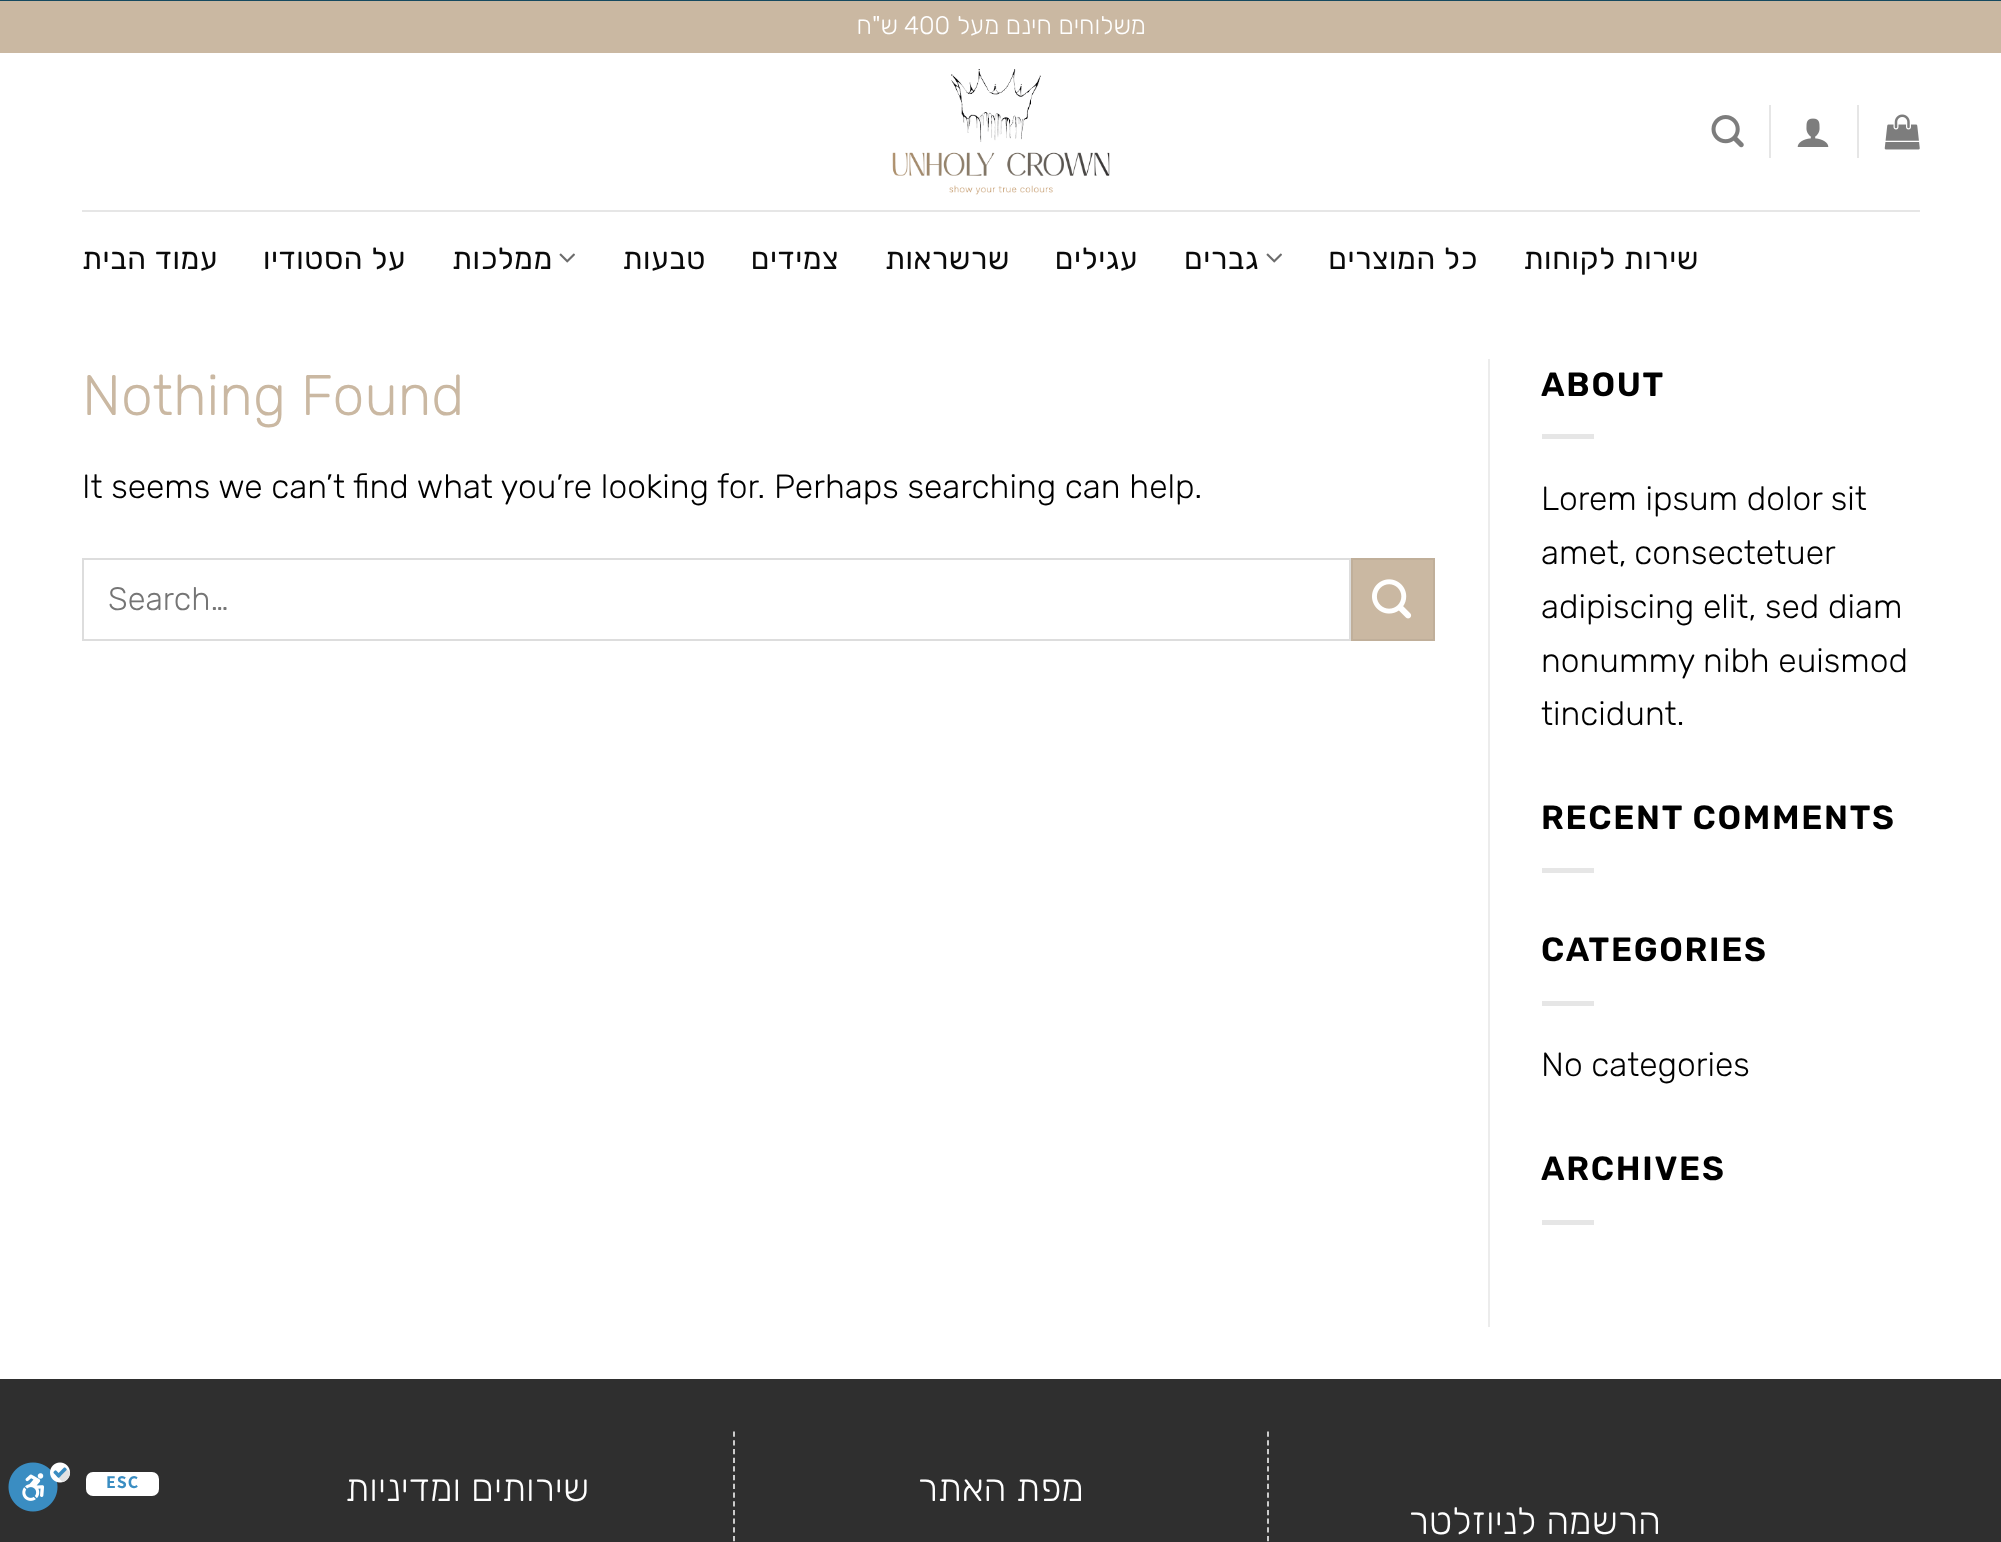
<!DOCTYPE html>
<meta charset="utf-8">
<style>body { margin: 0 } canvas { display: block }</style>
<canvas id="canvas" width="2001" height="1542"></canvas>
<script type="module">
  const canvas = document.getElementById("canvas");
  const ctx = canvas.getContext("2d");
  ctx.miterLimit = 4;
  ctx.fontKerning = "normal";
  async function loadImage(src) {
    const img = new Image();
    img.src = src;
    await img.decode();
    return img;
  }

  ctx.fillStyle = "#ffffff";
  ctx.fillRect(0, 0, 2001, 1542);
  ctx.fillStyle = "#cab8a2";
  ctx.fillRect(0, 1, 2001, 52);
  ctx.direction = "rtl";
  ctx.font = "300 25.25px Rubik";
  ctx.fillStyle = "#ffffff";
  ctx.fillText("ש\"ח", 898, 34);
  ctx.direction = "ltr";
  ctx.fillText("400", 904, 34);
  ctx.direction = "rtl";
  ctx.fillText("משלוחים חינם מעל", 1146, 34);
  ctx.drawImage(await loadImage("img1.png"), 892, 69, 218, 126);
  ctx.drawImage(await loadImage("img2.png"), 1711, 115, 33, 33);
  ctx.fillStyle = "#e6e6e6";
  ctx.fillRect(1769, 105, 2, 53);
  ctx.drawImage(await loadImage("img3.png"), 1797, 118, 32, 29);
  ctx.fillRect(1857, 105, 2, 53);
  ctx.drawImage(await loadImage("img4.png"), 1884, 114, 36, 36);
  ctx.fillRect(82, 210, 1838, 2);
  ctx.letterSpacing = "0.6px";
  ctx.wordSpacing = "1px";
  ctx.font = "30.25px Rubik";
  ctx.fillStyle = "#0a0a0a";
  ctx.fillText("עמוד הבית", 218, 269);
  ctx.fillText("על הסטודיו", 406, 269);
  ctx.wordSpacing = "0px";
  ctx.fillText("ממלכות", 553, 269);
  ctx.drawImage(await loadImage("img5.png"), 559, 253, 16, 10);
  ctx.fillText("טבעות", 706, 269);
  ctx.fillText("צמידים", 839, 269);
  ctx.fillText("שרשראות", 1010, 269);
  ctx.fillText("עגילים", 1138, 269);
  ctx.fillText("גברים", 1259, 269);
  ctx.drawImage(await loadImage("img5.png"), 1266, 253, 16, 10);
  ctx.wordSpacing = "1px";
  ctx.fillText("כל המוצרים", 1478, 269);
  ctx.wordSpacing = "0px";
  ctx.fillText("שירות לקוחות", 1699, 269);
  ctx.letterSpacing = "0px";
  ctx.direction = "ltr";
  ctx.font = "300 57px Rubik";
  ctx.fillStyle = "#cab8a2";
  ctx.fillText("Nothing Found", 82, 415);
  ctx.font = "300 33.6px Rubik";
  ctx.fillStyle = "#000000";
  ctx.fillText("It seems we can’t find what you’re looking for. Perhaps searching can help.", 82, 498);
  ctx.strokeStyle = "#dddddd";
  ctx.lineWidth = 2;
  ctx.strokeRect(83, 559, 1267, 81);
  ctx.font = "300 32.5px Rubik";
  ctx.fillStyle = "#757575";
  ctx.fillText("Search…", 108, 610);
  ctx.fillStyle = "#cab8a2";
  ctx.beginPath();
  ctx.rect(1352, 559, 82, 81);
  ctx.fill();
  ctx.strokeStyle = "#c0af9a";
  ctx.stroke();
  ctx.drawImage(await loadImage("img6.png"), 1372, 579, 40, 40);
  ctx.fillStyle = "#ececec";
  ctx.fillRect(1488, 359, 2, 968);
  ctx.letterSpacing = "1.7px";
  ctx.font = "600 33.6px Rubik";
  ctx.fillStyle = "#000000";
  ctx.fillText("ABOUT", 1541, 396);
  ctx.fillStyle = "#e6e6e6";
  ctx.fillRect(1542, 434, 52, 5);
  ctx.letterSpacing = "0px";
  ctx.font = "300 33.6px Rubik";
  ctx.fillStyle = "#000000";
  ctx.fillText("Lorem ipsum dolor sit", 1541, 510);
  ctx.wordSpacing = "-1px";
  ctx.fillText("amet, consectetuer", 1541, 564);
  ctx.wordSpacing = "0px";
  ctx.fillText("adipiscing elit, sed diam", 1541, 618);
  ctx.fillText("nonummy nibh euismod", 1541, 672);
  ctx.fillText("tincidunt.", 1541, 725);
  ctx.letterSpacing = "1.7px";
  ctx.font = "600 33.6px Rubik";
  ctx.fillText("RECENT COMMENTS", 1541, 829);
  ctx.fillStyle = "#e6e6e6";
  ctx.fillRect(1542, 868, 52, 5);
  ctx.fillStyle = "#000000";
  ctx.fillText("CATEGORIES", 1541, 961);
  ctx.fillStyle = "#e6e6e6";
  ctx.fillRect(1542, 1001, 52, 5);
  ctx.letterSpacing = "0px";
  ctx.font = "300 33.6px Rubik";
  ctx.fillStyle = "#000000";
  ctx.fillText("No categories", 1541, 1076);
  ctx.letterSpacing = "1.7px";
  ctx.font = "600 33.6px Rubik";
  ctx.fillText("ARCHIVES", 1541, 1180);
  ctx.fillStyle = "#e6e6e6";
  ctx.fillRect(1542, 1220, 52, 5);
  ctx.fillStyle = "#2f2f2f";
  ctx.fillRect(0, 1379, 2001, 163);
  ctx.letterSpacing = "0px";
  ctx.direction = "rtl";
  ctx.font = "300 37.75px Rubik";
  ctx.fillStyle = "#ffffff";
  ctx.fillText("שירותים ומדיניות", 589, 1501);
  ctx.beginPath();
  ctx.moveTo(734, 1431.5);
  ctx.lineTo(734, 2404.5);
  ctx.strokeStyle = "#dddddd";
  ctx.lineWidth = 1.8;
  ctx.setLineDash([5.25, 3.46]);
  ctx.stroke();
  ctx.fillText("מפת האתר", 1084, 1501);
  ctx.beginPath();
  ctx.moveTo(1268, 1431.5);
  ctx.lineTo(1268, 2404.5);
  ctx.stroke();
  ctx.fillText("הרשמה לניוזלטר", 1661, 1534);
  ctx.fillStyle = "#15495f";
  ctx.fillRect(0, 0, 2001, 1);
  ctx.drawImage(await loadImage("img7.png"), 8, 1462, 63, 50);
  ctx.fillStyle = "#ffffff";
  ctx.beginPath();
  ctx.roundRect(86, 1472, 73, 24, 7);
  ctx.fill();
  ctx.letterSpacing = "1px";
  ctx.direction = "ltr";
  ctx.font = "bold 18px Assistant";
  ctx.fillStyle = "#3a8dc2";
  ctx.fillText("ESC", 106, 1488);
</script>
